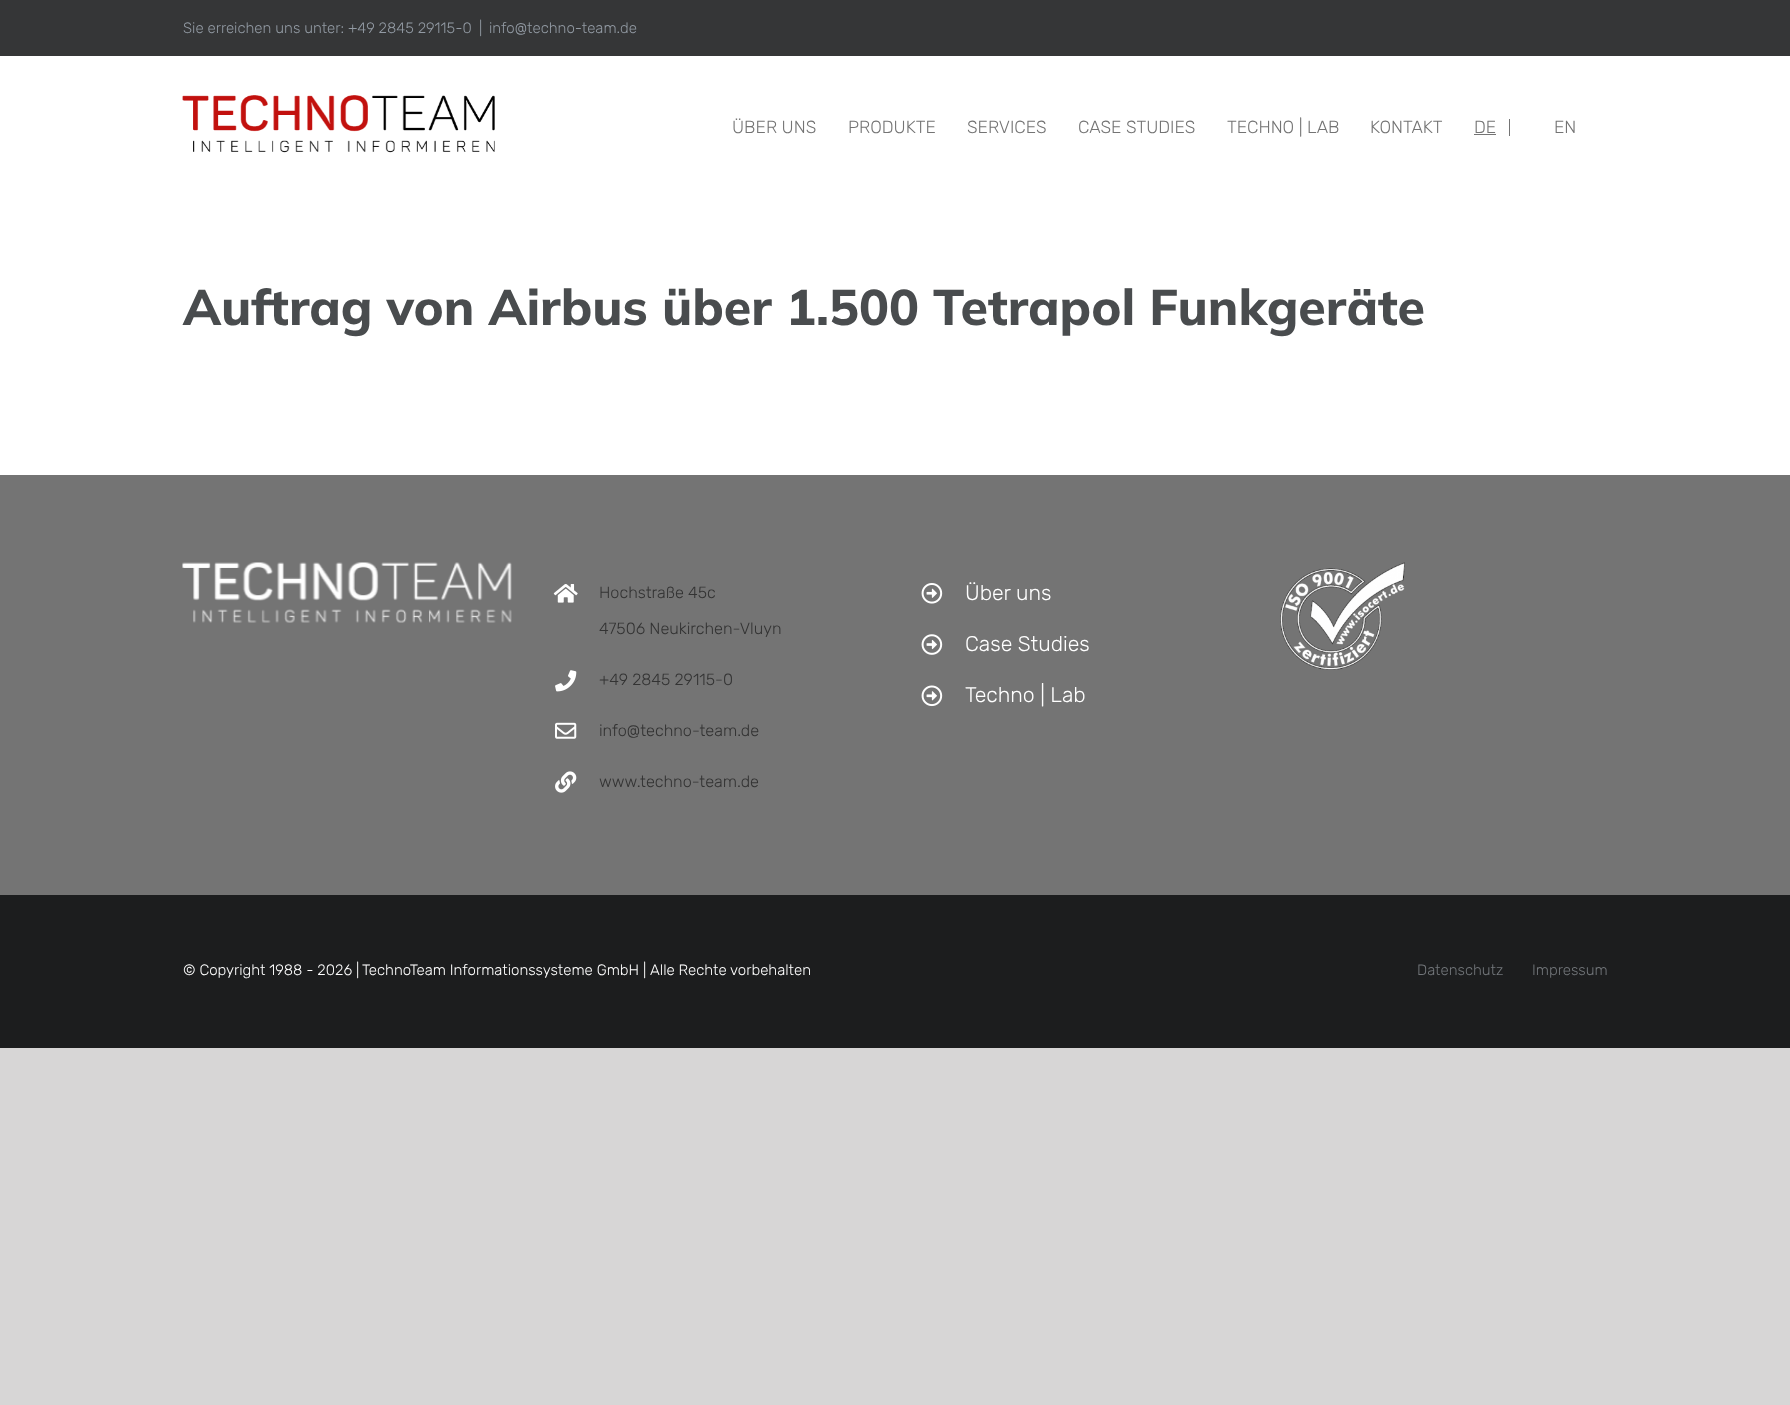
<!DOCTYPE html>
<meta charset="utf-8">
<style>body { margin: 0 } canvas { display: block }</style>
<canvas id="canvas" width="1790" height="1405"></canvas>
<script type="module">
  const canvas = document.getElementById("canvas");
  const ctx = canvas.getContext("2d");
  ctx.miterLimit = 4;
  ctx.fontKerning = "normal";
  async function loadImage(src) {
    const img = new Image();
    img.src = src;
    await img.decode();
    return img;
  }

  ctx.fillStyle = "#d7d6d6";
  ctx.fillRect(0, 0, 1790, 1405);
  ctx.fillStyle = "#ffffff";
  ctx.fillRect(0, 56, 1790, 419);
  ctx.fillStyle = "#353637";
  ctx.fillRect(0, 0, 1790, 56);
  ctx.font = "300 15px Rubik";
  ctx.fillStyle = "#929aa3";
  ctx.fillText("Sie erreichen uns unter: +49 2845 29115-0", 183, 33);
  ctx.fillText("|", 479, 33);
  ctx.fillText("info@techno-team.de", 489, 33);
  ctx.drawImage(await loadImage("img1.png"), 182, 95, 313, 58);
  ctx.font = "300 17.5px Rubik";
  ctx.fillStyle = "#747474";
  ctx.fillText("ÜBER UNS", 732, 133);
  ctx.fillText("PRODUKTE", 848, 133);
  ctx.fillText("SERVICES", 967, 133);
  ctx.fillText("CASE STUDIES", 1078, 133);
  ctx.fillText("TECHNO | LAB", 1227, 133);
  ctx.fillText("KONTAKT", 1370, 133);
  ctx.fillRect(1509, 119, 1, 17);
  ctx.fillText("DE", 1474, 133);
  ctx.fillRect(1474, 134, 22, 1);
  ctx.fillText("EN", 1554, 133);
  ctx.font = "800 50px Mulish";
  ctx.fillStyle = "#494c4e";
  ctx.fillText("Auftrag von Airbus über 1.500 Tetrapol Funkgeräte", 183, 325);
  ctx.fillStyle = "#747474";
  ctx.fillRect(0, 475, 1790, 420);
  ctx.drawImage(await loadImage("img2.png"), 182, 562, 330, 61);
  ctx.drawImage(await loadImage("img3.png"), 553, 584, 25, 19);
  ctx.font = "300 16.25px Rubik";
  ctx.fillStyle = "#333333";
  ctx.fillText("Hochstraße 45c", 599, 598);
  ctx.fillText("47506 Neukirchen-Vluyn", 599, 634);
  ctx.drawImage(await loadImage("img4.png"), 555, 670, 22, 22);
  ctx.fillText("+49 2845 29115-0", 599, 685);
  ctx.drawImage(await loadImage("img5.png"), 555, 722, 22, 17);
  ctx.fillText("info@techno-team.de", 599, 736);
  ctx.drawImage(await loadImage("img6.png"), 555, 771, 22, 22);
  ctx.fillText("www.techno-team.de", 599, 787);
  ctx.drawImage(await loadImage("img7.png"), 921, 583, 22, 21);
  ctx.font = "300 21.25px Rubik";
  ctx.fillStyle = "#ffffff";
  ctx.fillText("Über uns", 965, 600);
  ctx.drawImage(await loadImage("img8.png"), 921, 634, 22, 21);
  ctx.fillText("Case Studies", 965, 651);
  ctx.drawImage(await loadImage("img9.png"), 921, 685, 22, 22);
  ctx.fillText("Techno | Lab", 965, 702);
  ctx.drawImage(await loadImage("img10.png"), 1280, 562, 125, 108);
  ctx.fillStyle = "#1c1d1e";
  ctx.fillRect(0, 895, 1790, 153);
  ctx.font = "300 15px Rubik";
  ctx.fillStyle = "#ffffff";
  ctx.fillText("© Copyright 1988 - 2026 |", 183, 975);
  ctx.fillText("TechnoTeam Informationssysteme GmbH |", 362, 975);
  ctx.fillText("Alle Rechte vorbehalten", 650, 975);
  ctx.fillStyle = "#72767a";
  ctx.fillText("Datenschutz", 1417, 975);
  ctx.fillText("Impressum", 1532, 975);
</script>
